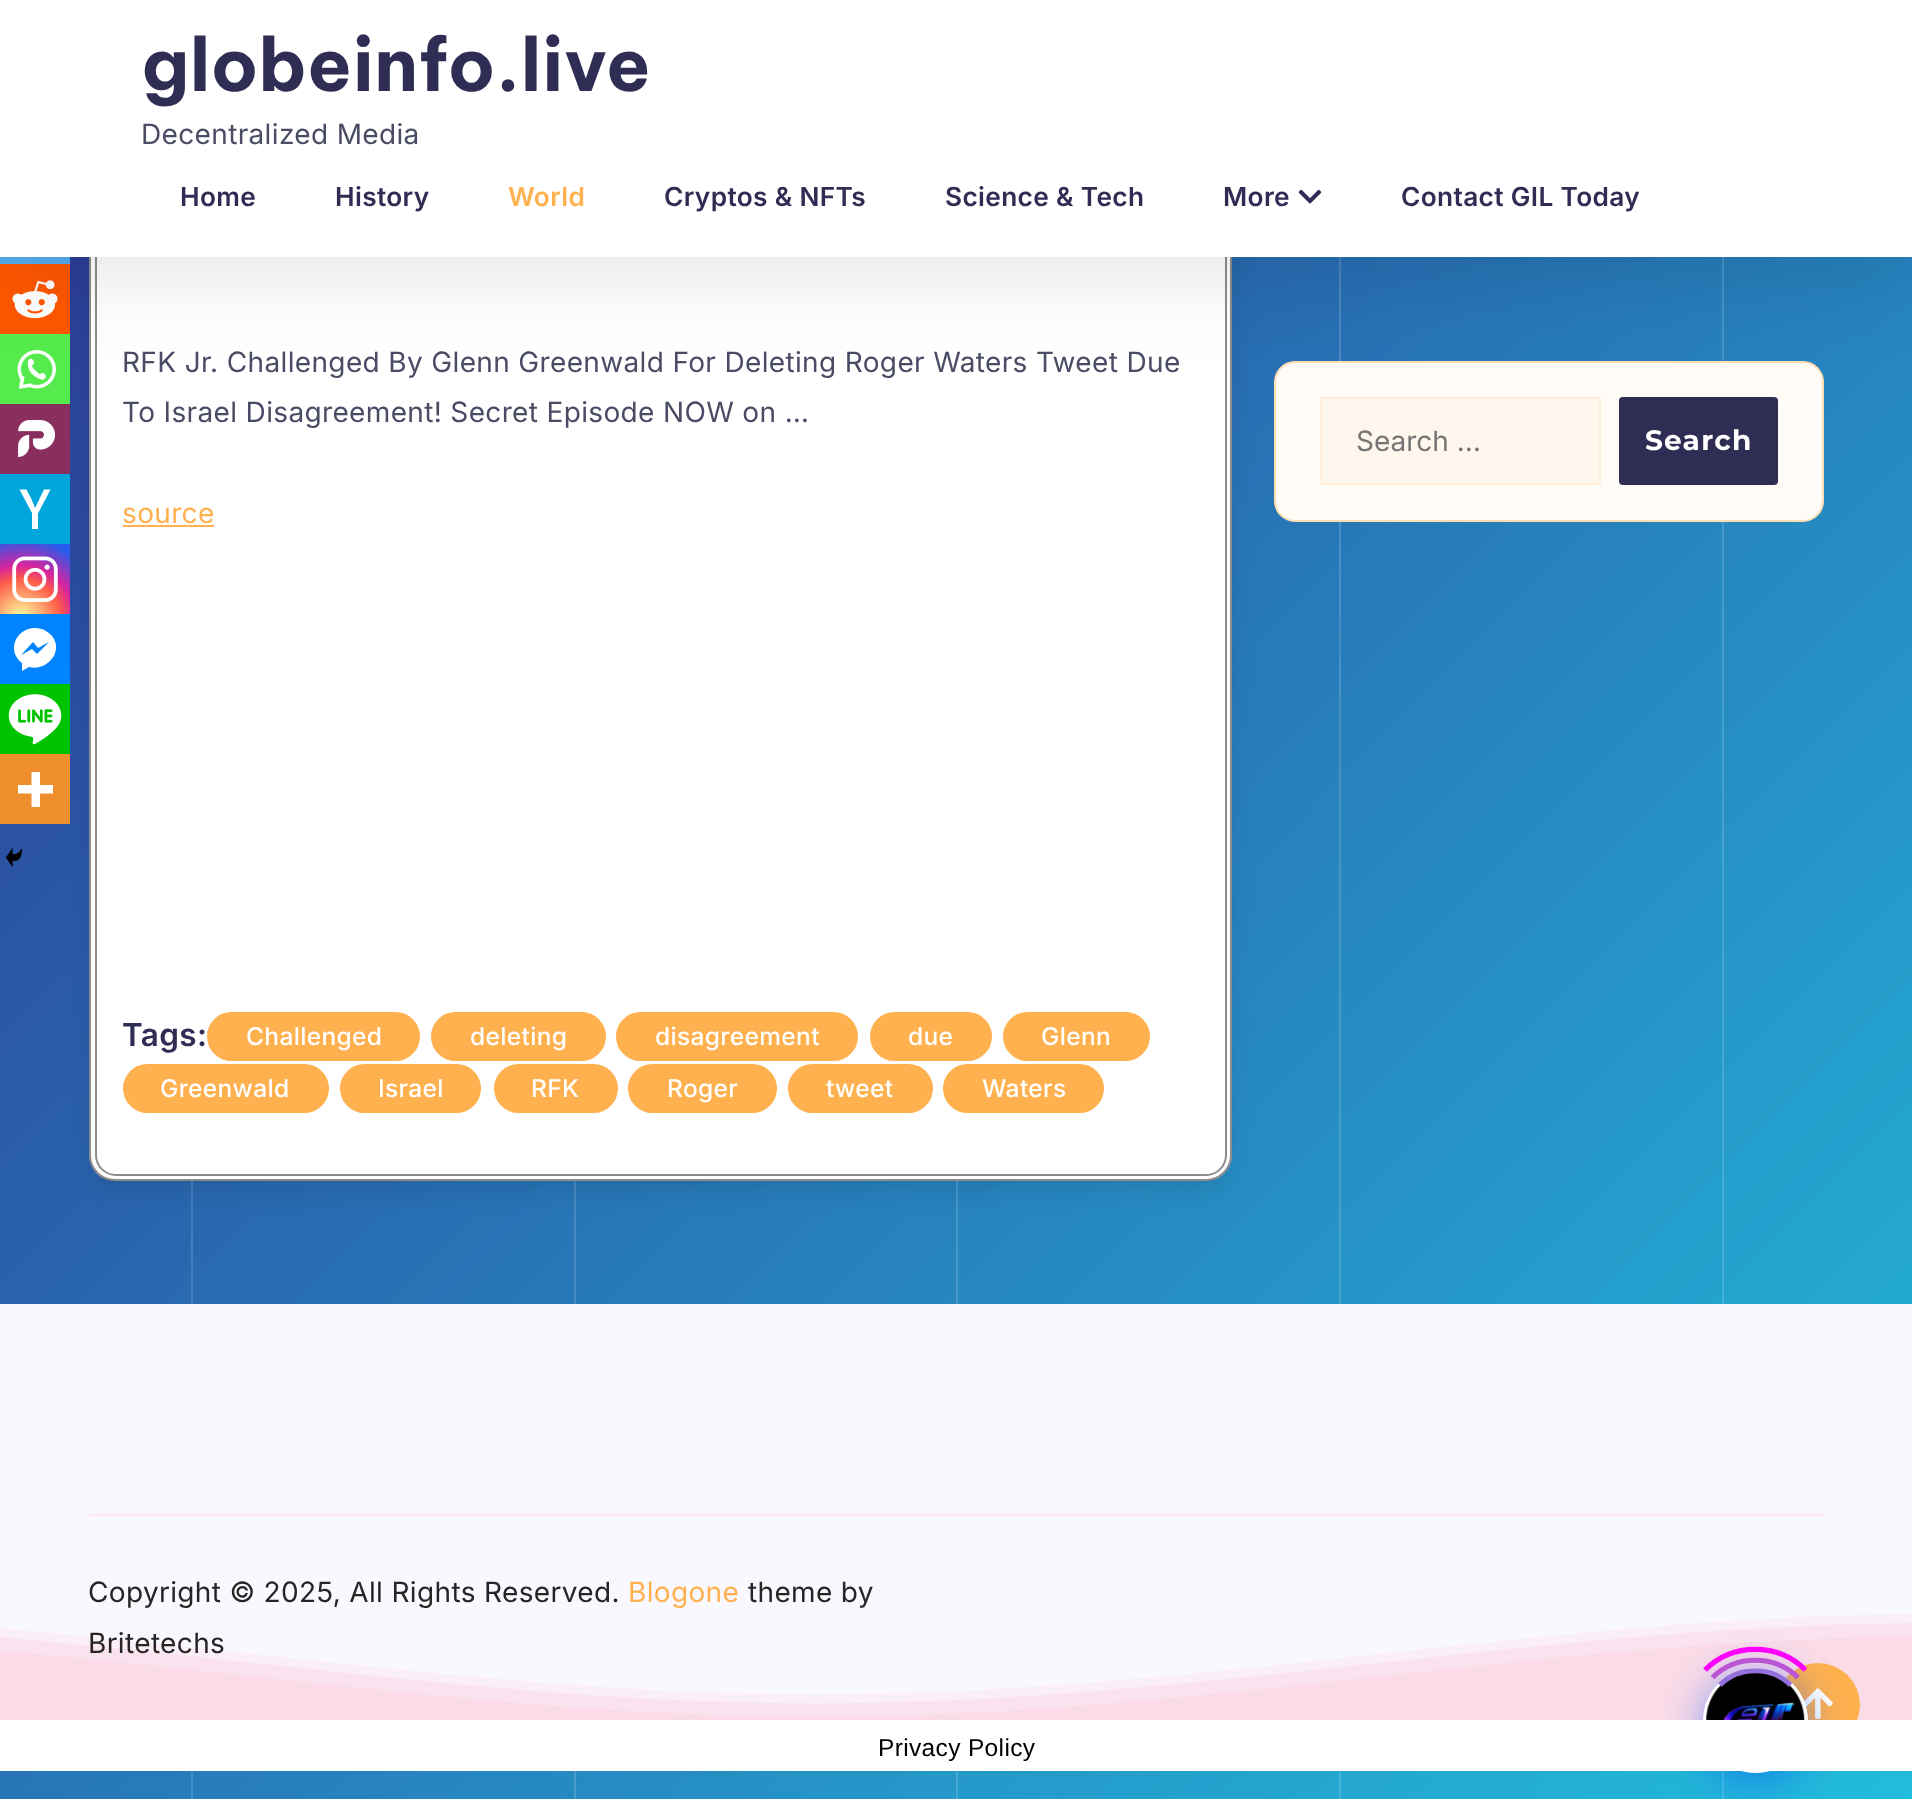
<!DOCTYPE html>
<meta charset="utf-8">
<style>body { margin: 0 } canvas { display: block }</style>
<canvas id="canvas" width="1912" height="1799"></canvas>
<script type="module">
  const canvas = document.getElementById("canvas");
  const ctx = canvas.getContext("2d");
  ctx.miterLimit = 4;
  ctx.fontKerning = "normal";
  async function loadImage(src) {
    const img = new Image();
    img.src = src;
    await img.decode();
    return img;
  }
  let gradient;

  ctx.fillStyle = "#ffffff";
  ctx.fillRect(0, 0, 1912, 1799);
  gradient = ctx.createLinearGradient(28, -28, 1884, 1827);
  gradient.addColorStop(0, "#2d3393");
  gradient.addColorStop(1, "#22bcdc");
  ctx.fillStyle = gradient;
  ctx.fillRect(0, 257, 1912, 1542);
  gradient = ctx.createLinearGradient(28, -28, 1884, 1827);
  gradient.addColorStop(0, "#4d52a3");
  gradient.addColorStop(1, "#43c6e1");
  ctx.fillStyle = gradient;
  ctx.fillRect(956, 1181, 2, 618);
  ctx.fillRect(574, 1181, 2, 618);
  ctx.fillRect(191, 1181, 2, 618);
  ctx.fillStyle = "rgba(0, 0, 0, 0.1)";
  ctx.filter = "blur(13px)";
  ctx.beginPath();
  ctx.roundRect(95, -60, 1132, 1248, 21);
  ctx.fill();
  ctx.filter = "none";
  ctx.fillStyle = "#ffffff";
  ctx.beginPath();
  ctx.roundRect(89, -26, 1143, 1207, 26);
  ctx.fill();
  ctx.beginPath();
  ctx.roundRect(90, -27, 1141, 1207, 25);
  ctx.strokeStyle = "rgba(0, 0, 0, 0.45)";
  ctx.lineWidth = 2;
  ctx.stroke();
  ctx.beginPath();
  ctx.roundRect(96, -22, 1130, 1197, 20);
  ctx.strokeStyle = "#8c8c8c";
  ctx.stroke();
  ctx.fillStyle = "#55acee";
  ctx.fillRect(0, 257, 70, 7);
  ctx.fillStyle = "#ff5700";
  ctx.fillRect(0, 264, 70, 70);
  ctx.drawImage(await loadImage("img2.png"), 12, 280, 46, 39);
  ctx.fillStyle = "#55eb4c";
  ctx.fillRect(0, 334, 70, 70);
  ctx.drawImage(await loadImage("img3.png"), 17, 350, 39, 39);
  ctx.fillStyle = "#892e5e";
  ctx.fillRect(0, 404, 70, 70);
  gradient = ctx.createLinearGradient(28, -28, 1884, 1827);
  gradient.addColorStop(0, "#4d52a3");
  gradient.addColorStop(1, "#43c6e1");
  ctx.fillStyle = gradient;
  ctx.fillRect(1722, 257, 2, 1542);
  ctx.fillRect(1339, 257, 2, 1542);
  ctx.fillStyle = "#fffcf7";
  ctx.beginPath();
  ctx.roundRect(1275, 362, 548, 159, 20);
  ctx.fill();
  ctx.strokeStyle = "#ffddb2";
  ctx.stroke();
  ctx.fillStyle = "#fff7ed";
  ctx.beginPath();
  ctx.rect(1321, 398, 279, 86);
  ctx.fill();
  ctx.strokeStyle = "#ffefdb";
  ctx.stroke();
  ctx.fillStyle = "#302d55";
  ctx.beginPath();
  ctx.roundRect(1620, 398, 157, 86, 3);
  ctx.fill();
  ctx.strokeStyle = "#302d55";
  ctx.stroke();
  ctx.fillStyle = "rgba(0, 0, 0, 0.1)";
  ctx.filter = "blur(44px)";
  ctx.beginPath();
  ctx.rect(0, 18, 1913, 257);
  ctx.fill();
  ctx.filter = "none";
  ctx.fillStyle = "#ffffff";
  ctx.fillRect(0, 0, 1912, 257);
  ctx.letterSpacing = "0.35px";
  ctx.font = "bold 73px Be Vietnam Pro";
  ctx.fillStyle = "#302d55";
  ctx.fillText("globeinfo.live", 141, 91);
  ctx.font = "28px Inter";
  ctx.fillStyle = "#494c64";
  ctx.fillText("Decentralized Media", 141, 144);
  ctx.font = "600 26.25px Inter";
  ctx.fillStyle = "#302d55";
  ctx.fillText("Home", 180, 206);
  ctx.fillText("History", 335, 206);
  ctx.fillStyle = "#ffb14f";
  ctx.fillText("World", 508, 206);
  ctx.fillStyle = "#302d55";
  ctx.fillText("Cryptos & NFTs", 664, 206);
  ctx.fillText("Science & Tech", 945, 206);
  ctx.fillText("More", 1223, 206);
  ctx.drawImage(await loadImage("img1.png"), 1298, 189, 24, 15);
  ctx.fillText("Contact GIL Today", 1401, 206);
  ctx.drawImage(await loadImage("img4.png"), 18, 420, 38, 37);
  ctx.fillStyle = "#00a6db";
  ctx.fillRect(0, 474, 70, 70);
  ctx.fillStyle = "#ffffff";
  ctx.beginPath();
  ctx.moveTo(38, 513.5);
  ctx.lineTo(38, 529);
  ctx.lineTo(32, 529);
  ctx.lineTo(32, 513);
  ctx.lineTo(19.5, 489.5);
  ctx.lineTo(26.5, 489.5);
  ctx.bezierCurveTo(29.5, 495.5, 33, 501.5, 35, 508);
  ctx.lineTo(44, 489.5);
  ctx.lineTo(50.5, 489.5);
  ctx.closePath();
  ctx.fill();
  gradient = ctx.createRadialGradient(21, 619, 0, 21, 619, 90);
  gradient.addColorStop(0, "#fdf497");
  gradient.addColorStop(0.05, "#fdf497");
  gradient.addColorStop(0.45, "#fd5949");
  gradient.addColorStop(0.6, "#d6249f");
  gradient.addColorStop(0.9, "#285aeb");
  ctx.fillStyle = gradient;
  ctx.fillRect(0, 544, 70, 70);
  ctx.drawImage(await loadImage("img5.png"), 12, 556, 46, 46);
  ctx.fillStyle = "#0084ff";
  ctx.fillRect(0, 614, 70, 70);
  ctx.fillStyle = "#ffffff";
  ctx.beginPath();
  ctx.moveTo(35, 628);
  ctx.bezierCurveTo(16, 628, 6, 651, 22, 663);
  ctx.lineTo(22, 671);
  ctx.lineTo(29, 667);
  ctx.bezierCurveTo(48, 672, 66, 649, 50, 634);
  ctx.bezierCurveTo(46, 630, 41, 628, 35, 628);
  ctx.closePath();
  ctx.moveTo(37, 654);
  ctx.lineTo(32, 649);
  ctx.lineTo(21, 655);
  ctx.lineTo(33, 642);
  ctx.lineTo(38, 648);
  ctx.lineTo(49, 642);
  ctx.closePath();
  ctx.fill();
  ctx.fillStyle = "#00c300";
  ctx.fillRect(0, 684, 70, 70);
  ctx.drawImage(await loadImage("img6.png"), 8, 694, 54, 51);
  ctx.fillStyle = "#ee8e2d";
  ctx.fillRect(0, 754, 70, 70);
  ctx.fillStyle = "#ffffff";
  ctx.beginPath();
  ctx.moveTo(40, 785);
  ctx.lineTo(40, 772);
  ctx.lineTo(31.5, 772);
  ctx.lineTo(31.5, 785);
  ctx.lineTo(18, 785);
  ctx.lineTo(18, 793.5);
  ctx.lineTo(31.5, 793.5);
  ctx.lineTo(31.5, 807);
  ctx.lineTo(40, 807);
  ctx.lineTo(40, 793.5);
  ctx.lineTo(53, 793.5);
  ctx.lineTo(53, 785);
  ctx.closePath();
  ctx.fill("evenodd");
  ctx.drawImage(await loadImage("img7.png"), 6, 847, 16, 21);
  ctx.font = "28px Inter";
  ctx.fillStyle = "#494c64";
  ctx.fillText("RFK Jr. Challenged By Glenn Greenwald For Deleting Roger Waters Tweet Due", 122, 372);
  ctx.fillText("To Israel Disagreement! Secret Episode NOW on …", 122, 422);
  ctx.fillStyle = "#ffb14f";
  ctx.fillText("source", 122, 523);
  ctx.fillRect(123, 525, 91, 2);
  ctx.font = "600 31.5px Inter";
  ctx.fillStyle = "#302d55";
  ctx.fillText("Tags:", 122, 1046);
  ctx.fillStyle = "#ffb14f";
  ctx.beginPath();
  ctx.roundRect(207, 1012, 213, 49, 24.5);
  ctx.fill();
  ctx.font = "500 24.5px Inter";
  ctx.fillStyle = "#ffffff";
  ctx.fillText("Challenged", 246, 1045);
  ctx.fillStyle = "#ffb14f";
  ctx.beginPath();
  ctx.roundRect(431, 1012, 175, 49, 24.5);
  ctx.fill();
  ctx.fillStyle = "#ffffff";
  ctx.fillText("deleting", 470, 1045);
  ctx.fillStyle = "#ffb14f";
  ctx.beginPath();
  ctx.roundRect(616, 1012, 242, 49, 24.5);
  ctx.fill();
  ctx.fillStyle = "#ffffff";
  ctx.fillText("disagreement", 655, 1045);
  ctx.fillStyle = "#ffb14f";
  ctx.beginPath();
  ctx.roundRect(870, 1012, 122, 49, 24.5);
  ctx.fill();
  ctx.fillStyle = "#ffffff";
  ctx.fillText("due", 908, 1045);
  ctx.fillStyle = "#ffb14f";
  ctx.beginPath();
  ctx.roundRect(1003, 1012, 147, 49, 24.5);
  ctx.fill();
  ctx.fillStyle = "#ffffff";
  ctx.fillText("Glenn", 1041, 1045);
  ctx.fillStyle = "#ffb14f";
  ctx.beginPath();
  ctx.roundRect(123, 1064, 206, 49, 24.5);
  ctx.fill();
  ctx.fillStyle = "#ffffff";
  ctx.fillText("Greenwald", 160, 1097);
  ctx.fillStyle = "#ffb14f";
  ctx.beginPath();
  ctx.roundRect(340, 1064, 141, 49, 24.5);
  ctx.fill();
  ctx.fillStyle = "#ffffff";
  ctx.fillText("Israel", 378, 1097);
  ctx.fillStyle = "#ffb14f";
  ctx.beginPath();
  ctx.roundRect(494, 1064, 124, 49, 24.5);
  ctx.fill();
  ctx.fillStyle = "#ffffff";
  ctx.fillText("RFK", 531, 1097);
  ctx.fillStyle = "#ffb14f";
  ctx.beginPath();
  ctx.roundRect(628, 1064, 149, 49, 24.5);
  ctx.fill();
  ctx.fillStyle = "#ffffff";
  ctx.fillText("Roger", 667, 1097);
  ctx.fillStyle = "#ffb14f";
  ctx.beginPath();
  ctx.roundRect(788, 1064, 145, 49, 24.5);
  ctx.fill();
  ctx.fillStyle = "#ffffff";
  ctx.fillText("tweet", 826, 1097);
  ctx.fillStyle = "#ffb14f";
  ctx.beginPath();
  ctx.roundRect(943, 1064, 161, 49, 24.5);
  ctx.fill();
  ctx.fillStyle = "#ffffff";
  ctx.fillText("Waters", 982, 1097);
  ctx.letterSpacing = "0px";
  ctx.font = "28px Inter";
  ctx.fillStyle = "#757575";
  ctx.fillText("Search …", 1356, 451);
  ctx.letterSpacing = "1.25px";
  ctx.font = "bold 28px Montserrat";
  ctx.fillStyle = "#ffffff";
  ctx.fillText("Search", 1645, 450);
  ctx.fillStyle = "#faf8ff";
  ctx.fillRect(0, 1304, 1912, 416);
  ctx.fillStyle = "#ffe8ed";
  ctx.fillRect(89, 1514, 1736, 2);
  ctx.letterSpacing = "0.35px";
  ctx.font = "28px Inter";
  ctx.fillStyle = "#282424";
  ctx.fillText("Copyright © 2025, All Rights Reserved.", 88, 1602);
  ctx.fillStyle = "#ffb14f";
  ctx.fillText("Blogone", 628, 1602);
  ctx.fillStyle = "#282424";
  ctx.fillText("theme by", 748, 1602);
  ctx.drawImage(await loadImage("img8.png"), 0, 1614, 1912, 106);
  ctx.fillText("Britetechs", 88, 1653);
  ctx.fillStyle = "#ffb14f";
  ctx.beginPath();
  ctx.arc(1818, 1705, 42, 0, Math.PI * 2);
  ctx.fill();
  ctx.drawImage(await loadImage("img9.png"), 1804, 1688, 29, 31);
  ctx.fillStyle = "rgba(0, 77, 255, 0.5)";
  ctx.filter = "blur(21px)";
  ctx.beginPath();
  ctx.roundRect(1703, 1675, 105, 105, 52.5);
  ctx.fill();
  ctx.filter = "none";
  ctx.fillStyle = "#ffffff";
  ctx.beginPath();
  ctx.arc(1755.5, 1720.5, 52.5, 0, Math.PI * 2);
  ctx.fill();
  ctx.fillRect(0, 1720, 1912, 51);
  ctx.font = "24.5px Liberation Sans";
  ctx.fillStyle = "#000000";
  ctx.fillText("Privacy Policy", 878, 1756);
  ctx.drawImage(await loadImage("img10.png"), 1706, 1673, 99, 47);
  ctx.beginPath();
  ctx.moveTo(1720, 1685);
  ctx.bezierCurveTo(1739, 1666, 1771.5, 1666, 1790.5, 1685);
  ctx.strokeStyle = "#9370db";
  ctx.lineWidth = 5.2;
  ctx.stroke();
  ctx.beginPath();
  ctx.moveTo(1712.5, 1677.5);
  ctx.bezierCurveTo(1736, 1654.5, 1774.5, 1654.5, 1798, 1677.5);
  ctx.strokeStyle = "#ba55d3";
  ctx.stroke();
  ctx.beginPath();
  ctx.moveTo(1705, 1670);
  ctx.bezierCurveTo(1732.5, 1642.5, 1778, 1642.5, 1805.5, 1670);
  ctx.strokeStyle = "#ff00ff";
  ctx.stroke();
</script>
